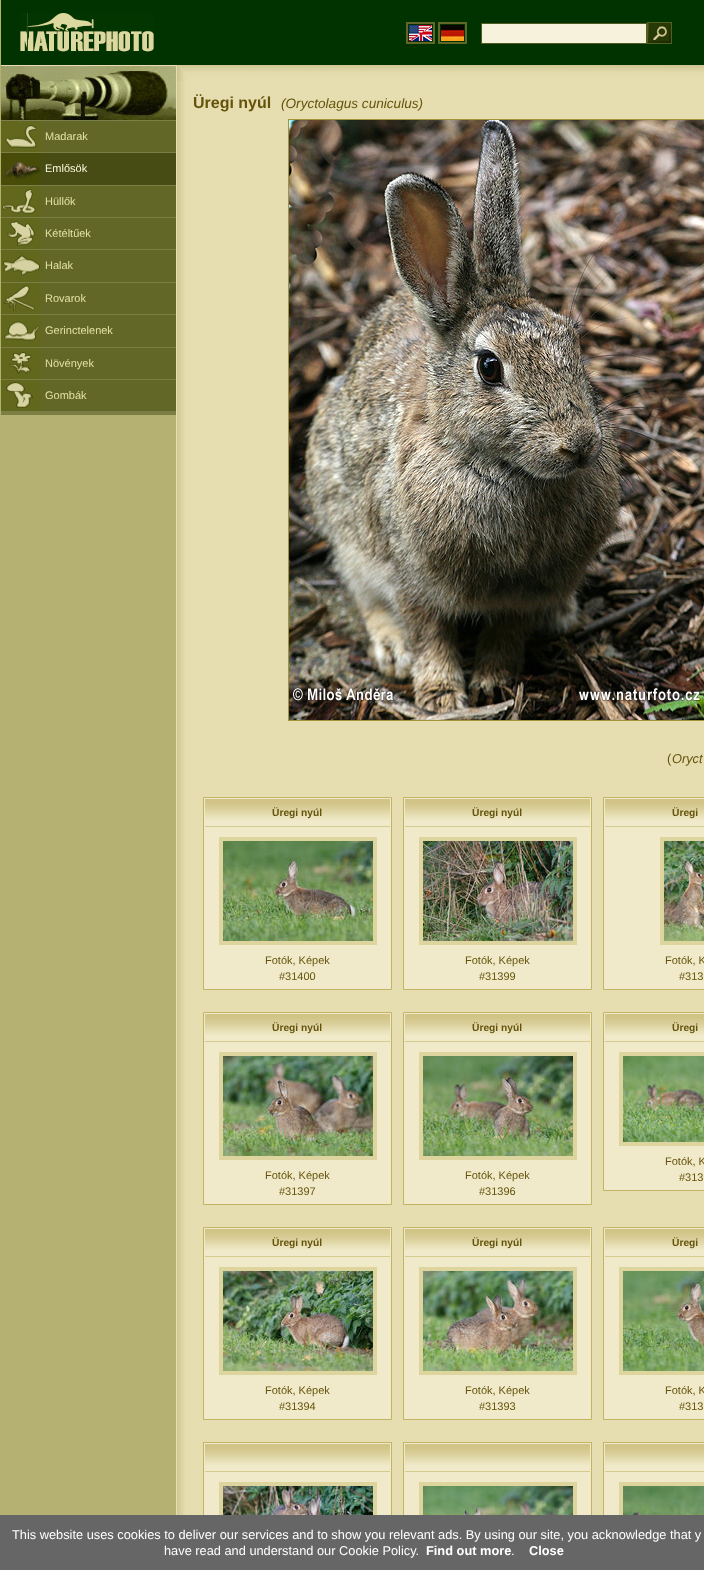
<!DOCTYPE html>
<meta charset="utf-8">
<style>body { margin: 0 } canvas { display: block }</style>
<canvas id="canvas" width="704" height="1570"></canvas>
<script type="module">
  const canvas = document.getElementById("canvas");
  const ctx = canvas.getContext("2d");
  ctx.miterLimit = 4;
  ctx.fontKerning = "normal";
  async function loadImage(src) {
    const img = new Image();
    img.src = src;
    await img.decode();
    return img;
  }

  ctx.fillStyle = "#ffffff";
  ctx.fillRect(0, 0, 704, 1570);
  ctx.drawImage(await loadImage("img1.png"), 1, 415, 175, 1100);
  ctx.fillStyle = "#b5b06c";
  ctx.fillRect(0, 0, 1, 1515);
  ctx.fillStyle = "#013300";
  ctx.fillRect(1, 0, 703, 65);
  ctx.fillStyle = "#e6deb0";
  ctx.fillRect(1, 65, 175, 1);
  ctx.drawImage(await loadImage("img2.png"), 20, 13, 134, 39);
  ctx.fillStyle = "#234c18";
  ctx.fillRect(27, 13, 1, 38);
  ctx.font = "bold 12px Liberation Sans";
  ctx.fillStyle = "#d0c691";
  ctx.fillText("l", 91, 28);
  ctx.strokeStyle = "#626727";
  ctx.lineWidth = 2;
  ctx.strokeRect(407, 23, 27, 20);
  ctx.strokeRect(439, 23, 27, 20);
  ctx.fillStyle = "#f7f2dc";
  ctx.beginPath();
  ctx.rect(481.5, 23.5, 165, 20);
  ctx.fill();
  ctx.strokeStyle = "#525b22";
  ctx.lineWidth = 1;
  ctx.stroke();
  ctx.drawImage(await loadImage("img3.png"), 647, 22, 25, 22);
  ctx.drawImage(await loadImage("img4.png"), 409, 25, 23, 16);
  ctx.drawImage(await loadImage("img5.png"), 441, 25, 23, 16);
  ctx.drawImage(await loadImage("img6.png"), 1, 66, 175, 55);
  ctx.fillStyle = "#7b7f44";
  ctx.fillRect(1, 411, 175, 4);
  ctx.fillRect(1, 152, 175, 1);
  ctx.fillStyle = "#626727";
  ctx.fillRect(1, 121, 175, 31);
  ctx.drawImage(await loadImage("img7.png"), 1, 121, 40, 31);
  ctx.font = "11px Liberation Sans";
  ctx.fillStyle = "#e0e2a0";
  ctx.fillText("Madarak", 45, 140);
  ctx.fillStyle = "#7b7f44";
  ctx.fillRect(1, 185, 175, 1);
  ctx.fillStyle = "#474c14";
  ctx.fillRect(1, 153, 175, 32);
  ctx.drawImage(await loadImage("img8.png"), 1, 153, 40, 32);
  ctx.fillStyle = "#fef9df";
  ctx.fillText("Emlősök", 45, 172);
  ctx.fillStyle = "#7b7f44";
  ctx.fillRect(1, 217, 175, 1);
  ctx.fillStyle = "#626727";
  ctx.fillRect(1, 186, 175, 31);
  ctx.drawImage(await loadImage("img9.png"), 1, 186, 40, 31);
  ctx.fillStyle = "#e0e2a0";
  ctx.fillText("Hüllők", 45, 205);
  ctx.fillStyle = "#7b7f44";
  ctx.fillRect(1, 249, 175, 1);
  ctx.fillStyle = "#626727";
  ctx.fillRect(1, 218, 175, 31);
  ctx.drawImage(await loadImage("img10.png"), 1, 218, 40, 31);
  ctx.fillStyle = "#e0e2a0";
  ctx.fillText("Kétéltűek", 45, 237);
  ctx.fillStyle = "#7b7f44";
  ctx.fillRect(1, 282, 175, 1);
  ctx.fillStyle = "#626727";
  ctx.fillRect(1, 250, 175, 32);
  ctx.drawImage(await loadImage("img11.png"), 1, 250, 40, 32);
  ctx.fillStyle = "#e0e2a0";
  ctx.fillText("Halak", 45, 269);
  ctx.fillStyle = "#7b7f44";
  ctx.fillRect(1, 314, 175, 1);
  ctx.fillStyle = "#626727";
  ctx.fillRect(1, 283, 175, 31);
  ctx.drawImage(await loadImage("img12.png"), 1, 283, 40, 31);
  ctx.fillStyle = "#e0e2a0";
  ctx.fillText("Rovarok", 45, 302);
  ctx.fillStyle = "#7b7f44";
  ctx.fillRect(1, 347, 175, 1);
  ctx.fillStyle = "#626727";
  ctx.fillRect(1, 315, 175, 32);
  ctx.drawImage(await loadImage("img13.png"), 1, 315, 40, 32);
  ctx.fillStyle = "#e0e2a0";
  ctx.fillText("Gerinctelenek", 45, 334);
  ctx.fillStyle = "#7b7f44";
  ctx.fillRect(1, 379, 175, 1);
  ctx.fillStyle = "#626727";
  ctx.fillRect(1, 348, 175, 31);
  ctx.drawImage(await loadImage("img14.png"), 1, 348, 40, 31);
  ctx.fillStyle = "#e0e2a0";
  ctx.fillText("Növények", 45, 367);
  ctx.fillStyle = "#626727";
  ctx.fillRect(1, 380, 175, 31);
  ctx.drawImage(await loadImage("img15.png"), 1, 380, 40, 31);
  ctx.fillStyle = "#e0e2a0";
  ctx.fillText("Gombák", 45, 399);
  ctx.fillStyle = "#e6deb0";
  ctx.fillRect(176, 65, 528, 1450);
  ctx.drawImage(await loadImage("img16.png"), 177, 81, 8, 1434);
  ctx.drawImage(await loadImage("img17.png"), 177, 65, 527, 16);
  ctx.font = "bold 16px Liberation Sans";
  ctx.fillStyle = "#65530b";
  ctx.fillText("Üregi nyúl", 193, 108);
  ctx.font = "italic 13.6px Liberation Sans";
  ctx.fillText("(Oryctolagus cuniculus)", 281, 108);
  ctx.strokeStyle = "#a49437";
  ctx.strokeRect(288.5, 119.5, 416, 601);
  ctx.drawImage(await loadImage("img18.png"), 289, 120, 415, 600);
  ctx.font = "12.8px Liberation Sans";
  ctx.fillText("(", 667, 763);
  ctx.font = "italic 12.8px Liberation Sans";
  ctx.fillText("Oryct", 672, 763);
  ctx.fillStyle = "#f0eaca";
  ctx.beginPath();
  ctx.rect(203.5, 797.5, 188, 192);
  ctx.fill();
  ctx.strokeStyle = "#c2b463";
  ctx.stroke();
  ctx.drawImage(await loadImage("img19.png"), 205, 799, 185, 21);
  ctx.fillStyle = "#d6cb8f";
  ctx.fillRect(205, 826, 185, 1);
  ctx.font = "bold 10.25px Liberation Sans";
  ctx.fillStyle = "#65530b";
  ctx.fillText("Üregi nyúl", 272, 816);
  ctx.strokeStyle = "#ded49e";
  ctx.lineWidth = 4;
  ctx.strokeRect(221, 839, 154, 104);
  ctx.drawImage(await loadImage("img20.png"), 223, 841, 150, 100);
  ctx.font = "11px Liberation Sans";
  ctx.fillText("Fotók, Képek", 265, 964);
  ctx.fillText("#31400", 279, 980);
  ctx.fillStyle = "#f0eaca";
  ctx.beginPath();
  ctx.rect(403.5, 797.5, 188, 192);
  ctx.fill();
  ctx.strokeStyle = "#c2b463";
  ctx.lineWidth = 1;
  ctx.stroke();
  ctx.drawImage(await loadImage("img19.png"), 405, 799, 185, 21);
  ctx.fillStyle = "#d6cb8f";
  ctx.fillRect(405, 826, 185, 1);
  ctx.font = "bold 10.25px Liberation Sans";
  ctx.fillStyle = "#65530b";
  ctx.fillText("Üregi nyúl", 472, 816);
  ctx.strokeStyle = "#ded49e";
  ctx.lineWidth = 4;
  ctx.strokeRect(421, 839, 154, 104);
  ctx.drawImage(await loadImage("img21.png"), 423, 841, 150, 100);
  ctx.font = "11px Liberation Sans";
  ctx.fillText("Fotók, Képek", 465, 964);
  ctx.fillText("#31399", 479, 980);
  ctx.fillStyle = "#f0eaca";
  ctx.beginPath();
  ctx.rect(603.5, 797.5, 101, 192);
  ctx.fill();
  ctx.strokeStyle = "#c2b463";
  ctx.lineWidth = 1;
  ctx.stroke();
  ctx.drawImage(await loadImage("img22.png"), 605, 799, 99, 21);
  ctx.fillStyle = "#d6cb8f";
  ctx.fillRect(605, 826, 99, 1);
  ctx.font = "bold 10.25px Liberation Sans";
  ctx.fillStyle = "#65530b";
  ctx.fillText("Üregi", 672, 816);
  ctx.strokeStyle = "#ded49e";
  ctx.lineWidth = 4;
  ctx.strokeRect(662, 839, 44, 104);
  ctx.drawImage(await loadImage("img23.png"), 664, 841, 40, 100);
  ctx.font = "11px Liberation Sans";
  ctx.fillText("Fotók, K", 665, 964);
  ctx.fillText("#313", 679, 980);
  ctx.fillStyle = "#f0eaca";
  ctx.beginPath();
  ctx.rect(203.5, 1012.5, 188, 192);
  ctx.fill();
  ctx.strokeStyle = "#c2b463";
  ctx.lineWidth = 1;
  ctx.stroke();
  ctx.drawImage(await loadImage("img19.png"), 205, 1014, 185, 21);
  ctx.fillStyle = "#d6cb8f";
  ctx.fillRect(205, 1041, 185, 1);
  ctx.font = "bold 10.25px Liberation Sans";
  ctx.fillStyle = "#65530b";
  ctx.fillText("Üregi nyúl", 272, 1031);
  ctx.strokeStyle = "#ded49e";
  ctx.lineWidth = 4;
  ctx.strokeRect(221, 1054, 154, 104);
  ctx.drawImage(await loadImage("img24.png"), 223, 1056, 150, 100);
  ctx.font = "11px Liberation Sans";
  ctx.fillText("Fotók, Képek", 265, 1179);
  ctx.fillText("#31397", 279, 1195);
  ctx.fillStyle = "#f0eaca";
  ctx.beginPath();
  ctx.rect(403.5, 1012.5, 188, 192);
  ctx.fill();
  ctx.strokeStyle = "#c2b463";
  ctx.lineWidth = 1;
  ctx.stroke();
  ctx.drawImage(await loadImage("img19.png"), 405, 1014, 185, 21);
  ctx.fillStyle = "#d6cb8f";
  ctx.fillRect(405, 1041, 185, 1);
  ctx.font = "bold 10.25px Liberation Sans";
  ctx.fillStyle = "#65530b";
  ctx.fillText("Üregi nyúl", 472, 1031);
  ctx.strokeStyle = "#ded49e";
  ctx.lineWidth = 4;
  ctx.strokeRect(421, 1054, 154, 104);
  ctx.drawImage(await loadImage("img25.png"), 423, 1056, 150, 100);
  ctx.font = "11px Liberation Sans";
  ctx.fillText("Fotók, Képek", 465, 1179);
  ctx.fillText("#31396", 479, 1195);
  ctx.fillStyle = "#f0eaca";
  ctx.beginPath();
  ctx.rect(603.5, 1012.5, 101, 178);
  ctx.fill();
  ctx.strokeStyle = "#c2b463";
  ctx.lineWidth = 1;
  ctx.stroke();
  ctx.drawImage(await loadImage("img22.png"), 605, 1014, 99, 21);
  ctx.fillStyle = "#d6cb8f";
  ctx.fillRect(605, 1041, 99, 1);
  ctx.font = "bold 10.25px Liberation Sans";
  ctx.fillStyle = "#65530b";
  ctx.fillText("Üregi", 672, 1031);
  ctx.strokeStyle = "#ded49e";
  ctx.lineWidth = 4;
  ctx.strokeRect(621, 1054, 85, 90);
  ctx.drawImage(await loadImage("img26.png"), 623, 1056, 81, 86);
  ctx.font = "11px Liberation Sans";
  ctx.fillText("Fotók, K", 665, 1165);
  ctx.fillText("#313", 679, 1181);
  ctx.fillStyle = "#f0eaca";
  ctx.beginPath();
  ctx.rect(203.5, 1227.5, 188, 192);
  ctx.fill();
  ctx.strokeStyle = "#c2b463";
  ctx.lineWidth = 1;
  ctx.stroke();
  ctx.drawImage(await loadImage("img19.png"), 205, 1229, 185, 21);
  ctx.fillStyle = "#d6cb8f";
  ctx.fillRect(205, 1256, 185, 1);
  ctx.font = "bold 10.25px Liberation Sans";
  ctx.fillStyle = "#65530b";
  ctx.fillText("Üregi nyúl", 272, 1246);
  ctx.strokeStyle = "#ded49e";
  ctx.lineWidth = 4;
  ctx.strokeRect(221, 1269, 154, 104);
  ctx.drawImage(await loadImage("img27.png"), 223, 1271, 150, 100);
  ctx.font = "11px Liberation Sans";
  ctx.fillText("Fotók, Képek", 265, 1394);
  ctx.fillText("#31394", 279, 1410);
  ctx.fillStyle = "#f0eaca";
  ctx.beginPath();
  ctx.rect(403.5, 1227.5, 188, 192);
  ctx.fill();
  ctx.strokeStyle = "#c2b463";
  ctx.lineWidth = 1;
  ctx.stroke();
  ctx.drawImage(await loadImage("img19.png"), 405, 1229, 185, 21);
  ctx.fillStyle = "#d6cb8f";
  ctx.fillRect(405, 1256, 185, 1);
  ctx.font = "bold 10.25px Liberation Sans";
  ctx.fillStyle = "#65530b";
  ctx.fillText("Üregi nyúl", 472, 1246);
  ctx.strokeStyle = "#ded49e";
  ctx.lineWidth = 4;
  ctx.strokeRect(421, 1269, 154, 104);
  ctx.drawImage(await loadImage("img28.png"), 423, 1271, 150, 100);
  ctx.font = "11px Liberation Sans";
  ctx.fillText("Fotók, Képek", 465, 1394);
  ctx.fillText("#31393", 479, 1410);
  ctx.fillStyle = "#f0eaca";
  ctx.beginPath();
  ctx.rect(603.5, 1227.5, 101, 192);
  ctx.fill();
  ctx.strokeStyle = "#c2b463";
  ctx.lineWidth = 1;
  ctx.stroke();
  ctx.drawImage(await loadImage("img22.png"), 605, 1229, 99, 21);
  ctx.fillStyle = "#d6cb8f";
  ctx.fillRect(605, 1256, 99, 1);
  ctx.font = "bold 10.25px Liberation Sans";
  ctx.fillStyle = "#65530b";
  ctx.fillText("Üregi", 672, 1246);
  ctx.strokeStyle = "#ded49e";
  ctx.lineWidth = 4;
  ctx.strokeRect(621, 1269, 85, 104);
  ctx.drawImage(await loadImage("img29.png"), 623, 1271, 81, 100);
  ctx.font = "11px Liberation Sans";
  ctx.fillText("Fotók, K", 665, 1394);
  ctx.fillText("#313", 679, 1410);
  ctx.fillStyle = "#f0eaca";
  ctx.fillRect(204, 1443, 187, 72);
  ctx.strokeStyle = "#c2b463";
  ctx.lineWidth = 1;
  ctx.strokeRect(203.5, 1442.5, 188, 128);
  ctx.drawImage(await loadImage("img19.png"), 205, 1444, 185, 21);
  ctx.fillStyle = "#d6cb8f";
  ctx.fillRect(205, 1471, 185, 1);
  ctx.strokeStyle = "#ded49e";
  ctx.lineWidth = 4;
  ctx.strokeRect(221, 1484, 154, 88);
  ctx.drawImage(await loadImage("img30.png"), 223, 1486, 150, 29);
  ctx.fillStyle = "#f0eaca";
  ctx.fillRect(404, 1443, 187, 72);
  ctx.strokeStyle = "#c2b463";
  ctx.lineWidth = 1;
  ctx.strokeRect(403.5, 1442.5, 188, 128);
  ctx.drawImage(await loadImage("img19.png"), 405, 1444, 185, 21);
  ctx.fillStyle = "#d6cb8f";
  ctx.fillRect(405, 1471, 185, 1);
  ctx.strokeStyle = "#ded49e";
  ctx.lineWidth = 4;
  ctx.strokeRect(421, 1484, 154, 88);
  ctx.drawImage(await loadImage("img31.png"), 423, 1486, 150, 29);
  ctx.fillStyle = "#f0eaca";
  ctx.fillRect(604, 1443, 100, 72);
  ctx.strokeStyle = "#c2b463";
  ctx.lineWidth = 1;
  ctx.strokeRect(603.5, 1442.5, 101, 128);
  ctx.drawImage(await loadImage("img22.png"), 605, 1444, 99, 21);
  ctx.fillStyle = "#d6cb8f";
  ctx.fillRect(605, 1471, 99, 1);
  ctx.strokeStyle = "#ded49e";
  ctx.lineWidth = 4;
  ctx.strokeRect(621, 1484, 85, 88);
  ctx.drawImage(await loadImage("img32.png"), 623, 1486, 81, 29);
  ctx.fillStyle = "#666666";
  ctx.fillRect(0, 1515, 704, 55);
  ctx.font = "12.8px Liberation Sans";
  ctx.fillStyle = "#ffffff";
  ctx.fillText("This website uses cookies to deliver our services and to show you relevant ads. By using our site, you acknowledge that y", 12, 1539);
  ctx.fillText("have read and understand our Cookie Policy.", 164, 1555);
  ctx.font = "bold 12.8px Liberation Sans";
  ctx.fillText("Find out more", 426, 1555);
  ctx.font = "12.8px Liberation Sans";
  ctx.fillText(".", 511, 1555);
  ctx.font = "bold 12.8px Liberation Sans";
  ctx.fillText("Close", 529, 1555);
</script>
